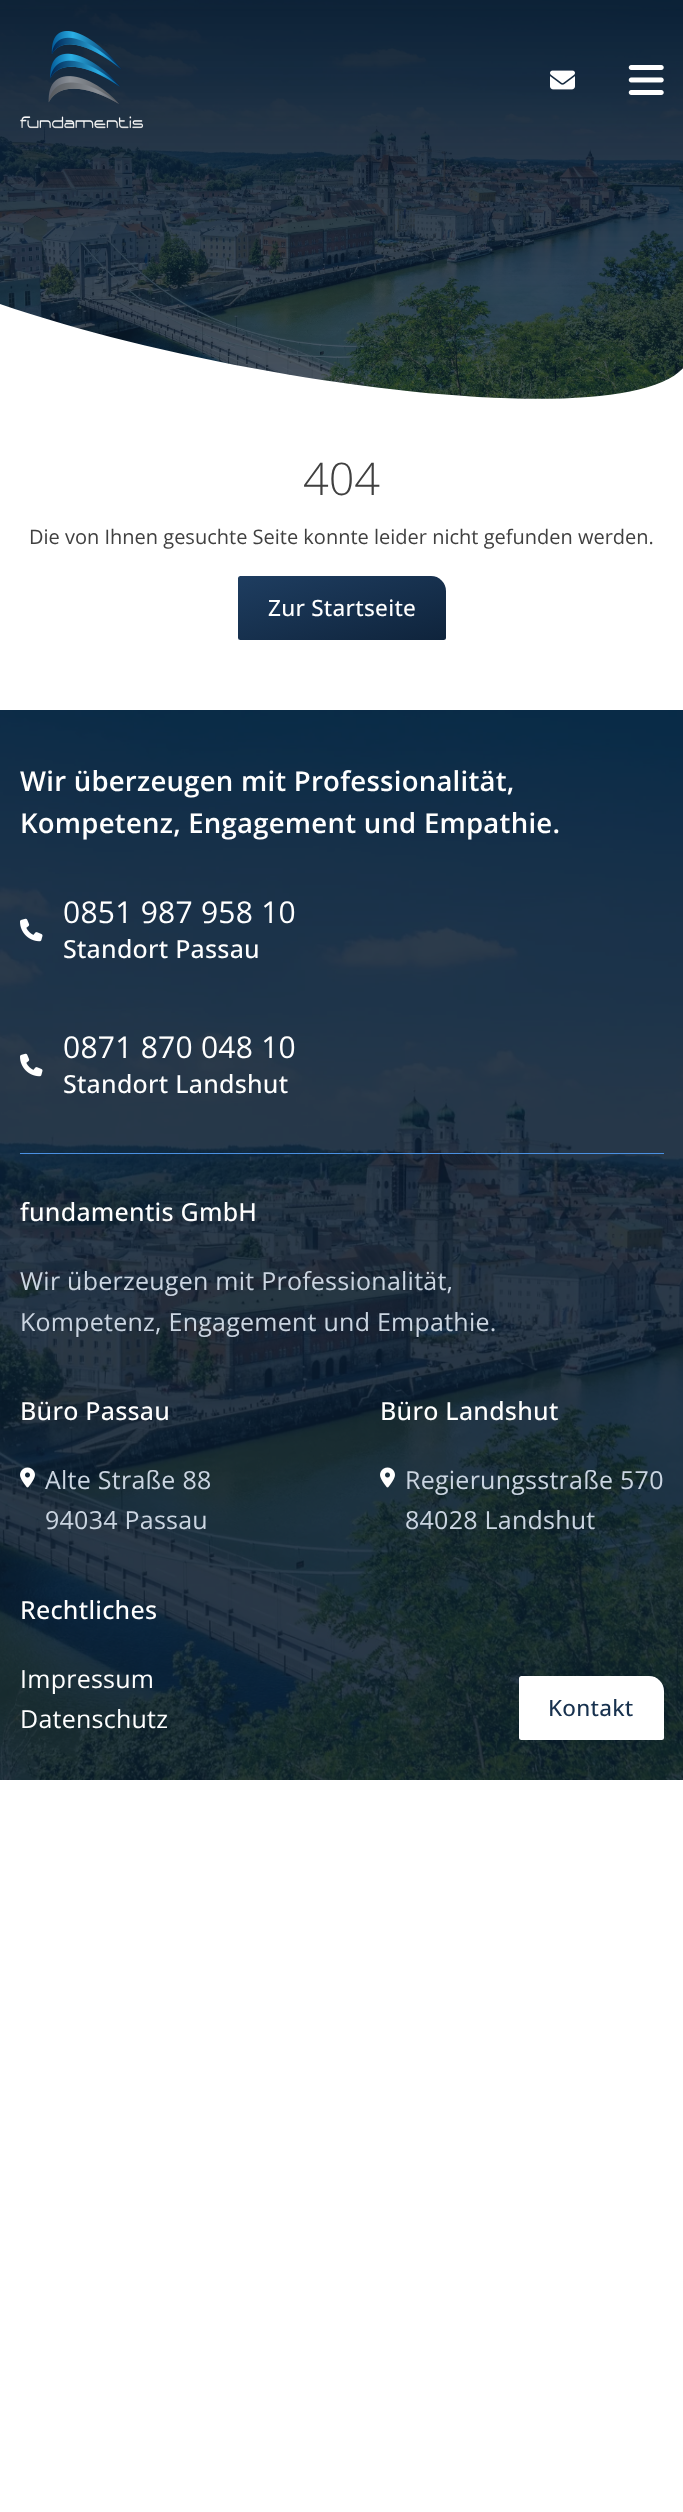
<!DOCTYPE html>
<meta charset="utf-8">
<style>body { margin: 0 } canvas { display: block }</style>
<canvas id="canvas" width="683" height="2512"></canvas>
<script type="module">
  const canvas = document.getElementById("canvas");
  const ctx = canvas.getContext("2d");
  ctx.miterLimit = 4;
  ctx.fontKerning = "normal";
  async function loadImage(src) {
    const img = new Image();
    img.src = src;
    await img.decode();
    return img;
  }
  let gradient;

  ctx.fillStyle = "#ffffff";
  ctx.fillRect(0, 0, 683, 2512);
  ctx.drawImage(await loadImage("img1.png"), 0, 0, 683, 399);
  ctx.save();
  ctx.beginPath();
  ctx.rect(0, 304, 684, 96);
  ctx.clip();
  ctx.beginPath();
  ctx.moveTo(0, 304);
  ctx.lineTo(0, 401);
  ctx.lineTo(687, 401);
  ctx.lineTo(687, 363);
  ctx.bezierCurveTo(641, 438, 232, 384, 0, 304);
  ctx.closePath();
  ctx.fill();
  ctx.restore();
  ctx.drawImage(await loadImage("img2.png"), 20, 31, 124, 98);
  ctx.drawImage(await loadImage("img3.png"), 550, 70, 25, 20);
  ctx.drawImage(await loadImage("img4.png"), 628, 65, 36, 30);
  ctx.font = "300 45px Open Sans";
  ctx.fillStyle = "#404040";
  ctx.fillText("404", 303, 495);
  ctx.font = "20px Open Sans";
  ctx.fillText("Die von Ihnen gesuchte Seite konnte leider nicht gefunden werden.", 29, 544);
  gradient = ctx.createLinearGradient(324, 550, 360, 666);
  gradient.addColorStop(0, "#1e3d60");
  gradient.addColorStop(1, "#0f243c");
  ctx.fillStyle = gradient;
  ctx.beginPath();
  ctx.roundRect(238, 576, 208, 64, [2.5, 15, 2.5, 2.5]);
  ctx.fill();
  ctx.letterSpacing = "0.25px";
  ctx.font = "500 22.5px Open Sans";
  ctx.fillStyle = "#ffffff";
  ctx.fillText("Zur Startseite", 268, 616);
  ctx.drawImage(await loadImage("img5.png"), 0, 710, 683, 1070);
  ctx.fillStyle = "#4a90e2";
  ctx.fillRect(20, 1153, 644, 1);
  ctx.font = "600 27.5px Open Sans";
  ctx.fillStyle = "#ffffff";
  ctx.fillText("Wir überzeugen mit Professionalität,", 20, 791);
  ctx.fillText("Kompetenz, Engagement und Empathie.", 20, 833);
  ctx.drawImage(await loadImage("img6.png"), 20, 918, 23, 24);
  ctx.font = "30px Open Sans";
  ctx.fillText("0851 987 958 10", 63, 923);
  ctx.font = "500 25px Open Sans";
  ctx.fillText("Standort Passau", 63, 958);
  ctx.drawImage(await loadImage("img7.png"), 20, 1053, 23, 24);
  ctx.font = "30px Open Sans";
  ctx.fillText("0871 870 048 10", 63, 1058);
  ctx.font = "500 25px Open Sans";
  ctx.fillText("Standort Landshut", 63, 1093);
  ctx.fillText("fundamentis GmbH", 20, 1221);
  ctx.font = "25px Open Sans";
  ctx.fillStyle = "#cbd5e1";
  ctx.fillText("Wir überzeugen mit Professionalität,", 20, 1290);
  ctx.fillText("Kompetenz, Engagement und Empathie.", 20, 1331);
  ctx.font = "500 25px Open Sans";
  ctx.fillStyle = "#ffffff";
  ctx.fillText("Büro Passau", 20, 1420);
  ctx.drawImage(await loadImage("img8.png"), 20, 1467, 15, 21);
  ctx.font = "25px Open Sans";
  ctx.fillStyle = "#cbd5e1";
  ctx.fillText("Alte Straße 88", 45, 1489);
  ctx.fillText("94034 Passau", 45, 1529);
  ctx.font = "500 25px Open Sans";
  ctx.fillStyle = "#ffffff";
  ctx.fillText("Büro Landshut", 380, 1420);
  ctx.drawImage(await loadImage("img9.png"), 380, 1467, 15, 21);
  ctx.font = "25px Open Sans";
  ctx.fillStyle = "#cbd5e1";
  ctx.fillText("Regierungsstraße 570", 405, 1489);
  ctx.fillText("84028 Landshut", 405, 1529);
  ctx.font = "500 25px Open Sans";
  ctx.fillStyle = "#ffffff";
  ctx.fillText("Rechtliches", 20, 1619);
  ctx.font = "25px Open Sans";
  ctx.fillText("Impressum", 20, 1688);
  ctx.fillText("Datenschutz", 20, 1728);
  ctx.beginPath();
  ctx.roundRect(519, 1676, 145, 64, [2.5, 15, 2.5, 2.5]);
  ctx.fill();
  ctx.font = "500 22.5px Open Sans";
  ctx.fillStyle = "#17314e";
  ctx.fillText("Kontakt", 548, 1716);
</script>
